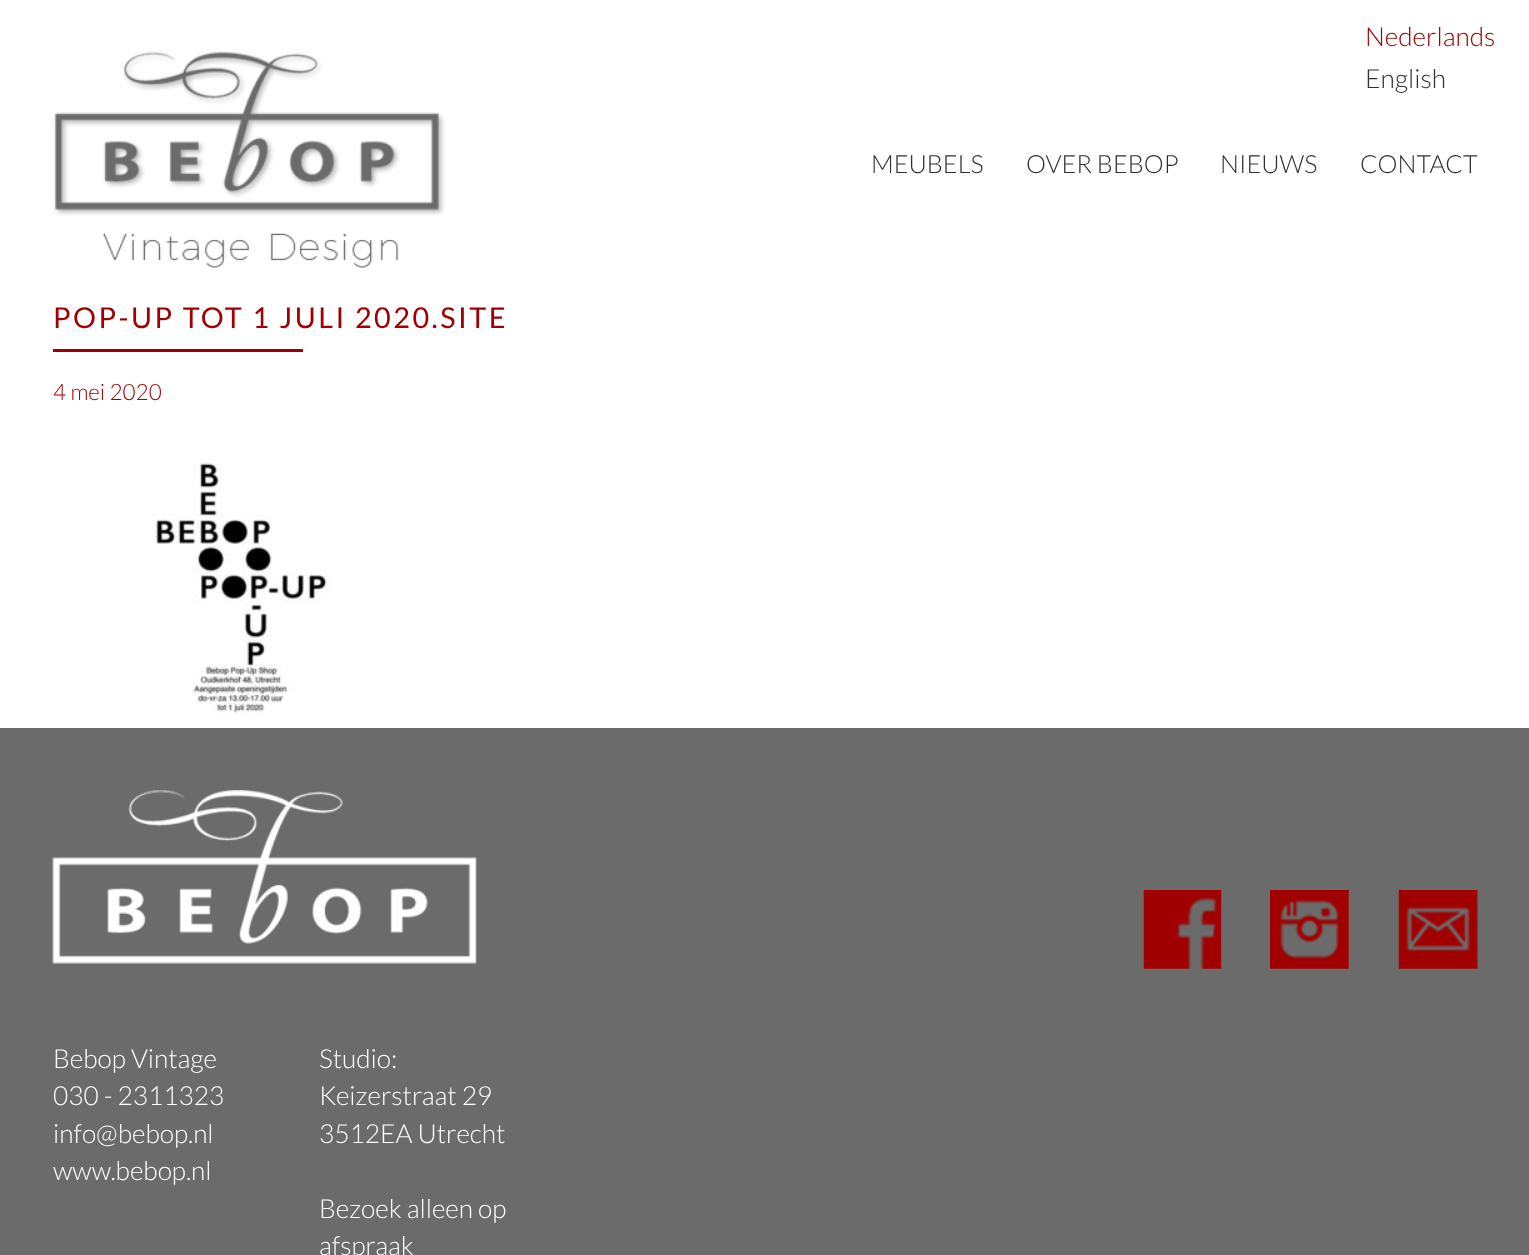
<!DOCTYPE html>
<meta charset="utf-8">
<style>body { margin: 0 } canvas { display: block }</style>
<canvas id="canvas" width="1529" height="1255"></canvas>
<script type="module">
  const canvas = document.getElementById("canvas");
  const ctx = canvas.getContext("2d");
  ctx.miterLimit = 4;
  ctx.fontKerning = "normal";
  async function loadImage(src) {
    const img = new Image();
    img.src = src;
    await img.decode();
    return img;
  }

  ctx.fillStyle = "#ffffff";
  ctx.fillRect(0, 0, 1529, 1255);
  ctx.drawImage(await loadImage("img1.png"), 54, 51, 391, 217);
  ctx.font = "300 26.25px Lato";
  ctx.fillStyle = "#a10000";
  ctx.fillText("Nederlands", 1365, 46);
  ctx.fillStyle = "#2f2f2f";
  ctx.fillText("English", 1365, 88);
  ctx.font = "300 25px Lato";
  ctx.fillText("MEUBELS", 871, 173);
  ctx.fillText("OVER BEBOP", 1026, 173);
  ctx.fillText("NIEUWS", 1220, 173);
  ctx.fillText("CONTACT", 1360, 173);
  ctx.letterSpacing = "2.5px";
  ctx.font = "28.75px Lato";
  ctx.fillStyle = "#a10000";
  ctx.fillText("POP-UP TOT 1 JULI 2020.SITE", 53, 328);
  ctx.fillRect(53, 349, 250, 3);
  ctx.letterSpacing = "0px";
  ctx.font = "300 22.5px Lato";
  ctx.fillText("4 mei 2020", 53, 400);
  ctx.drawImage(await loadImage("img2.png"), 152, 463, 179, 251);
  ctx.fillStyle = "#6b6b6b";
  ctx.fillRect(0, 728, 1529, 527);
  ctx.drawImage(await loadImage("img3.png"), 1143, 890, 79, 79);
  ctx.drawImage(await loadImage("img4.png"), 1270, 890, 79, 79);
  ctx.drawImage(await loadImage("img5.png"), 1398, 890, 80, 79);
  ctx.drawImage(await loadImage("img6.png"), 52, 790, 425, 174);
  ctx.font = "300 26.25px Lato";
  ctx.fillStyle = "#ffffff";
  ctx.fillText("Bebop Vintage", 53, 1068);
  ctx.fillText("030 - 2311323", 53, 1105);
  ctx.fillText("info@bebop.nl", 53, 1143);
  ctx.fillText("www.bebop.nl", 53, 1180);
  ctx.fillText("Studio:", 319, 1068);
  ctx.fillText("Keizerstraat 29", 319, 1105);
  ctx.fillText("3512EA Utrecht", 319, 1143);
  ctx.fillText("Bezoek alleen op", 319, 1218);
  ctx.fillText("afspraak", 319, 1255);
</script>
